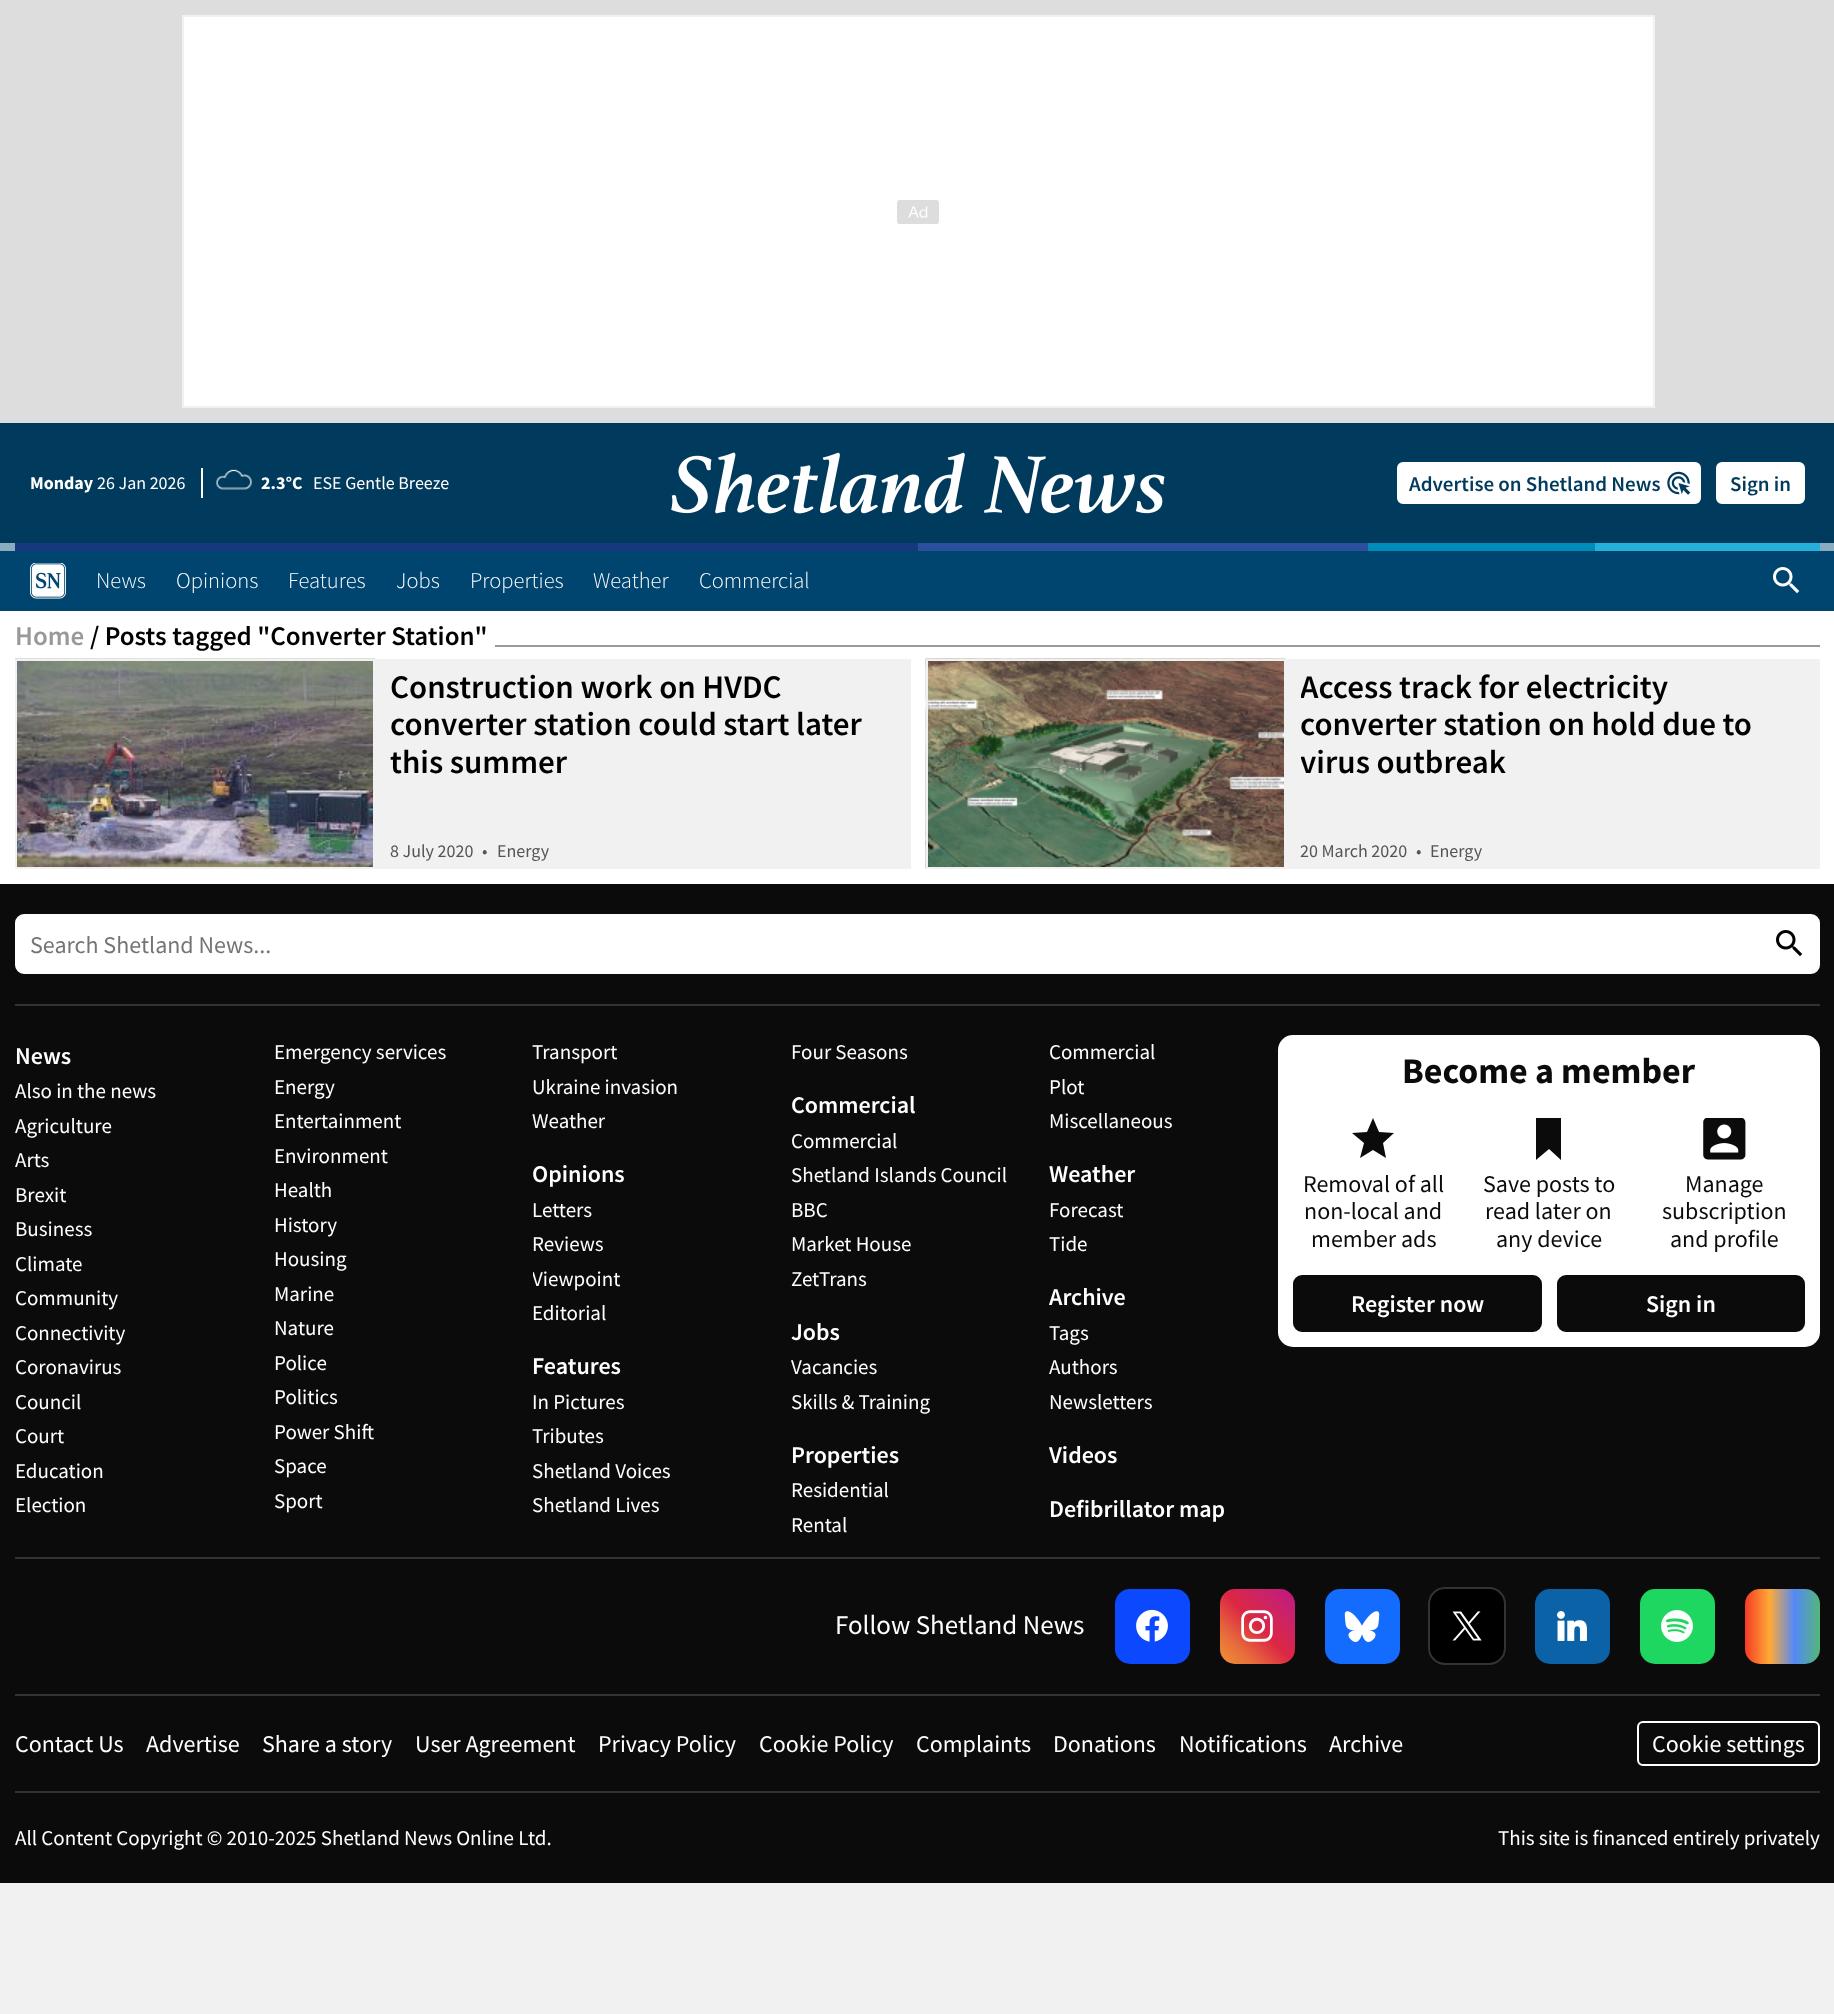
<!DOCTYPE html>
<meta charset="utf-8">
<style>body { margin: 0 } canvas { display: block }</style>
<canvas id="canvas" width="1834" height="2014"></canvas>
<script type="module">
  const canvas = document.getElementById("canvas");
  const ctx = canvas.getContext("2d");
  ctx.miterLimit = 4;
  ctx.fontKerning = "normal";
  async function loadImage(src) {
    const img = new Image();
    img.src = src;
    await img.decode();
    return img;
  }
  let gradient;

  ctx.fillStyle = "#f1f1f1";
  ctx.fillRect(0, 0, 1834, 2014);
  ctx.fillStyle = "#003a5d";
  ctx.fillRect(0, 423, 1834, 120);
  ctx.fillStyle = "#dddddd";
  ctx.fillRect(0, 0, 1834, 423);
  ctx.fillStyle = "#ffffff";
  ctx.fillRect(184, 17, 1469, 389);
  ctx.drawImage(await loadImage("img1.png"), 897, 200, 42, 24);
  ctx.strokeStyle = "#f1f1f1";
  ctx.lineWidth = 2;
  ctx.strokeRect(183, 16, 1471, 391);
  ctx.font = "bold 18px Source Sans Pro";
  ctx.fillText("Monday", 30, 489);
  ctx.font = "18px Source Sans Pro";
  ctx.fillText("26 Jan 2026", 97, 489);
  ctx.fillRect(201, 468, 2, 30);
  ctx.drawImage(await loadImage("img2.png"), 216, 469, 36, 21);
  ctx.font = "bold 18px Source Sans Pro";
  ctx.fillText("2.3°C", 261, 489);
  ctx.font = "18px Source Sans Pro";
  ctx.fillText("ESE Gentle Breeze", 313, 489);
  ctx.drawImage(await loadImage("img3.png"), 671, 452, 494, 62);
  ctx.beginPath();
  ctx.roundRect(1398, 463, 302, 40, 5);
  ctx.fill();
  ctx.strokeStyle = "#ffffff";
  ctx.stroke();
  ctx.font = "600 21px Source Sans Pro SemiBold";
  ctx.fillStyle = "#003a5d";
  ctx.fillText("Advertise on Shetland News", 1409, 491);
  ctx.drawImage(await loadImage("img4.png"), 1667, 471, 24, 24);
  ctx.fillStyle = "#ffffff";
  ctx.beginPath();
  ctx.roundRect(1717, 463, 87, 40, 5);
  ctx.fill();
  ctx.stroke();
  ctx.fillStyle = "#003a5d";
  ctx.fillText("Sign in", 1730, 491);
  ctx.fillStyle = "#89acc1";
  ctx.fillRect(0, 543, 1834, 8);
  ctx.fillStyle = "#16387f";
  ctx.fillRect(15, 543, 903, 8);
  ctx.fillStyle = "#2a4f9c";
  ctx.fillRect(918, 543, 450, 8);
  ctx.fillStyle = "#008cba";
  ctx.fillRect(1368, 543, 227, 8);
  ctx.fillStyle = "#25b0d9";
  ctx.fillRect(1595, 543, 225, 8);
  ctx.fillStyle = "#004570";
  ctx.fillRect(0, 551, 1834, 60);
  ctx.drawImage(await loadImage("img5.png"), 30, 563, 36, 36);
  ctx.font = "300 22.5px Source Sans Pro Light";
  ctx.fillStyle = "#ffffff";
  ctx.fillText("News", 96, 588);
  ctx.fillText("Opinions", 176, 588);
  ctx.fillText("Features", 288, 588);
  ctx.fillText("Jobs", 396, 588);
  ctx.fillText("Properties", 470, 588);
  ctx.fillText("Weather", 593, 588);
  ctx.fillText("Commercial", 699, 588);
  ctx.drawImage(await loadImage("img6.png"), 1773, 567, 27, 27);
  ctx.fillRect(0, 611, 1834, 273);
  ctx.font = "600 27px Source Sans Pro SemiBold";
  ctx.fillStyle = "#999999";
  ctx.fillText("Home", 15, 645);
  ctx.fillStyle = "#000000";
  ctx.fillText("/ Posts tagged \"Converter Station\"", 90, 645);
  ctx.fillStyle = "#999999";
  ctx.fillRect(495, 645, 1325, 2);
  ctx.fillStyle = "#f1f1f1";
  ctx.fillRect(375, 659, 536, 210);
  ctx.drawImage(await loadImage("img7.png"), 15, 658, 360, 209);
  ctx.strokeStyle = "#f1f1f1";
  ctx.strokeRect(16, 660, 358, 208);
  ctx.font = "600 33px Source Sans Pro SemiBold";
  ctx.fillStyle = "#000000";
  ctx.fillText("Construction work on HVDC", 390, 698);
  ctx.fillText("converter station could start later", 390, 735);
  ctx.fillText("this summer", 390, 773);
  ctx.font = "18px Source Sans Pro";
  ctx.fillStyle = "#555555";
  ctx.fillText("8 July 2020", 390, 857);
  ctx.fillText("•", 482, 857);
  ctx.fillText("Energy", 497, 857);
  ctx.fillStyle = "#f1f1f1";
  ctx.fillRect(1286, 659, 534, 210);
  ctx.drawImage(await loadImage("img8.png"), 925, 658, 361, 211);
  ctx.strokeRect(927, 660, 358, 208);
  ctx.save();
  ctx.beginPath();
  ctx.rect(1301, 668, 504, 112);
  ctx.clip();
  ctx.font = "600 33px Source Sans Pro SemiBold";
  ctx.fillStyle = "#000000";
  ctx.fillText("Access track for electricity", 1300, 698);
  ctx.restore();
  ctx.font = "600 33px Source Sans Pro SemiBold";
  ctx.fillStyle = "#000000";
  ctx.fillText("converter station on hold due to", 1300, 735);
  ctx.save();
  ctx.beginPath();
  ctx.rect(1301, 668, 504, 112);
  ctx.clip();
  ctx.fillText("virus outbreak", 1300, 773);
  ctx.restore();
  ctx.font = "18px Source Sans Pro";
  ctx.fillStyle = "#555555";
  ctx.fillText("20 March 2020", 1300, 857);
  ctx.fillText("•", 1416, 857);
  ctx.fillText("Energy", 1430, 857);
  ctx.fillStyle = "#0b0b0b";
  ctx.fillRect(0, 884, 1834, 999);
  ctx.fillStyle = "#ffffff";
  ctx.beginPath();
  ctx.roundRect(16, 915, 1803, 58, 8);
  ctx.fill();
  ctx.strokeStyle = "#ffffff";
  ctx.stroke();
  ctx.font = "24px Source Sans Pro";
  ctx.fillStyle = "#757575";
  ctx.fillText("Search Shetland News...", 30, 953);
  ctx.drawImage(await loadImage("img9.png"), 1776, 930, 27, 27);
  ctx.fillStyle = "#333333";
  ctx.fillRect(15, 1004, 1805, 2);
  ctx.font = "21px Source Sans Pro";
  ctx.fillStyle = "#ffffff";
  ctx.fillText("Emergency services", 274, 1059);
  ctx.fillText("Transport", 532, 1059);
  ctx.fillText("Also in the news", 15, 1098);
  ctx.fillText("Energy", 274, 1094);
  ctx.fillText("Ukraine invasion", 532, 1094);
  ctx.fillText("Agriculture", 15, 1133);
  ctx.fillText("Entertainment", 274, 1128);
  ctx.fillText("Weather", 532, 1128);
  ctx.fillText("Arts", 15, 1167);
  ctx.fillText("Environment", 274, 1163);
  ctx.fillText("Brexit", 15, 1202);
  ctx.fillText("Health", 274, 1197);
  ctx.fillText("Business", 15, 1236);
  ctx.fillText("History", 274, 1232);
  ctx.fillText("Climate", 15, 1271);
  ctx.fillText("Housing", 274, 1266);
  ctx.fillText("Community", 15, 1305);
  ctx.fillText("Marine", 274, 1301);
  ctx.fillText("Connectivity", 15, 1340);
  ctx.fillText("Nature", 274, 1335);
  ctx.fillText("Coronavirus", 15, 1374);
  ctx.fillText("Police", 274, 1370);
  ctx.fillText("Council", 15, 1409);
  ctx.fillText("Politics", 274, 1404);
  ctx.fillText("Court", 15, 1443);
  ctx.fillText("Power Shift", 274, 1439);
  ctx.fillText("Education", 15, 1478);
  ctx.fillText("Space", 274, 1473);
  ctx.fillText("Election", 15, 1512);
  ctx.fillText("Sport", 274, 1508);
  ctx.font = "600 24px Source Sans Pro SemiBold";
  ctx.fillText("News", 15, 1064);
  ctx.font = "21px Source Sans Pro";
  ctx.fillText("Four Seasons", 791, 1059);
  ctx.fillText("In Pictures", 532, 1409);
  ctx.fillText("Tributes", 532, 1443);
  ctx.fillText("Shetland Voices", 532, 1478);
  ctx.fillText("Shetland Lives", 532, 1512);
  ctx.font = "600 24px Source Sans Pro SemiBold";
  ctx.fillText("Features", 532, 1374);
  ctx.font = "21px Source Sans Pro";
  ctx.fillText("Commercial", 1049, 1059);
  ctx.fillText("Plot", 1049, 1094);
  ctx.fillText("Miscellaneous", 1049, 1128);
  ctx.fillText("Residential", 791, 1497);
  ctx.fillText("Rental", 791, 1532);
  ctx.font = "600 24px Source Sans Pro SemiBold";
  ctx.fillText("Properties", 791, 1463);
  ctx.fillText("Opinions", 532, 1182);
  ctx.font = "21px Source Sans Pro";
  ctx.fillText("Letters", 532, 1217);
  ctx.fillText("Reviews", 532, 1251);
  ctx.save();
  ctx.beginPath();
  ctx.rect(533, 1262, 228, 34);
  ctx.clip();
  ctx.fillText("Viewpoint", 532, 1286);
  ctx.restore();
  ctx.fillText("Editorial", 532, 1320);
  ctx.font = "600 24px Source Sans Pro SemiBold";
  ctx.fillText("Commercial", 791, 1113);
  ctx.font = "21px Source Sans Pro";
  ctx.fillText("Commercial", 791, 1148);
  ctx.fillText("Shetland Islands Council", 791, 1182);
  ctx.fillText("BBC", 791, 1217);
  ctx.fillText("Market House", 791, 1251);
  ctx.fillText("ZetTrans", 791, 1286);
  ctx.font = "600 24px Source Sans Pro SemiBold";
  ctx.fillText("Weather", 1049, 1182);
  ctx.font = "21px Source Sans Pro";
  ctx.fillText("Forecast", 1049, 1217);
  ctx.fillText("Tide", 1049, 1251);
  ctx.font = "600 24px Source Sans Pro SemiBold";
  ctx.fillText("Jobs", 791, 1340);
  ctx.font = "21px Source Sans Pro";
  ctx.fillText("Vacancies", 791, 1374);
  ctx.fillText("Skills & Training", 791, 1409);
  ctx.font = "600 24px Source Sans Pro SemiBold";
  ctx.fillText("Archive", 1049, 1305);
  ctx.font = "21px Source Sans Pro";
  ctx.fillText("Tags", 1049, 1340);
  ctx.fillText("Authors", 1049, 1374);
  ctx.fillText("Newsletters", 1049, 1409);
  ctx.font = "600 24px Source Sans Pro SemiBold";
  ctx.fillText("Videos", 1049, 1463);
  ctx.fillText("Defibrillator map", 1049, 1517);
  ctx.beginPath();
  ctx.roundRect(1278, 1035, 542, 312, 15);
  ctx.fill();
  ctx.font = "bold 36px Source Sans Pro";
  ctx.fillStyle = "#0b0b0b";
  ctx.fillText("Become a member", 1402, 1083);
  ctx.beginPath();
  ctx.moveTo(1373, 1150);
  ctx.lineTo(1386, 1158);
  ctx.lineTo(1383, 1143);
  ctx.lineTo(1394, 1133);
  ctx.lineTo(1379, 1132);
  ctx.lineTo(1373, 1118);
  ctx.lineTo(1367, 1132);
  ctx.lineTo(1352, 1133);
  ctx.lineTo(1364, 1143);
  ctx.lineTo(1360, 1158);
  ctx.closePath();
  ctx.fill();
  ctx.font = "24px Source Sans Pro";
  ctx.fillText("Removal of all", 1303, 1192);
  ctx.fillText("non-local and", 1304, 1219);
  ctx.fillText("member ads", 1311, 1247);
  ctx.beginPath();
  ctx.moveTo(1561, 1160);
  ctx.lineTo(1549, 1149);
  ctx.lineTo(1536, 1160);
  ctx.lineTo(1536, 1118);
  ctx.lineTo(1561, 1118);
  ctx.closePath();
  ctx.fill();
  ctx.fillText("Save posts to", 1483, 1192);
  ctx.fillText("read later on", 1485, 1219);
  ctx.fillText("any device", 1496, 1247);
  ctx.drawImage(await loadImage("img10.png"), 1703, 1118, 43, 42);
  ctx.fillText("Manage", 1685, 1192);
  ctx.fillText("subscription", 1662, 1219);
  ctx.fillText("and profile", 1670, 1247);
  ctx.beginPath();
  ctx.roundRect(1294, 1276, 247, 55, 8);
  ctx.fill();
  ctx.strokeStyle = "#0b0b0b";
  ctx.stroke();
  ctx.font = "600 24px Source Sans Pro SemiBold";
  ctx.fillStyle = "#ffffff";
  ctx.fillText("Register now", 1351, 1312);
  ctx.fillStyle = "#0b0b0b";
  ctx.beginPath();
  ctx.roundRect(1558, 1276, 246, 55, 8);
  ctx.fill();
  ctx.stroke();
  ctx.fillStyle = "#ffffff";
  ctx.fillText("Sign in", 1646, 1312);
  ctx.fillStyle = "#333333";
  ctx.fillRect(15, 1557, 1805, 2);
  ctx.font = "27px Source Sans Pro";
  ctx.fillStyle = "#ffffff";
  ctx.fillText("Follow Shetland News", 835, 1634);
  ctx.fillStyle = "#0b48fe";
  ctx.beginPath();
  ctx.roundRect(1115, 1589, 75, 75, 15);
  ctx.fill();
  ctx.drawImage(await loadImage("img11.png"), 1136, 1609, 32, 33);
  gradient = ctx.createLinearGradient(1220, 1664, 1295, 1589);
  gradient.addColorStop(0, "#f09433");
  gradient.addColorStop(0.25, "#e6683c");
  gradient.addColorStop(0.5, "#dc2743");
  gradient.addColorStop(0.75, "#cc2366");
  gradient.addColorStop(1, "#bc1888");
  ctx.fillStyle = gradient;
  ctx.beginPath();
  ctx.roundRect(1220, 1589, 75, 75, 15);
  ctx.fill();
  ctx.drawImage(await loadImage("img12.png"), 1241, 1610, 32, 32);
  ctx.fillStyle = "#136cfe";
  ctx.beginPath();
  ctx.roundRect(1325, 1589, 75, 75, 15);
  ctx.fill();
  ctx.drawImage(await loadImage("img13.png"), 1344, 1611, 36, 31);
  ctx.fillStyle = "#000000";
  ctx.beginPath();
  ctx.roundRect(1429, 1588, 76, 76, 16);
  ctx.fill();
  ctx.strokeStyle = "#333333";
  ctx.stroke();
  ctx.drawImage(await loadImage("img14.png"), 1452, 1611, 30, 30);
  ctx.fillStyle = "#0b62a6";
  ctx.beginPath();
  ctx.roundRect(1535, 1589, 75, 75, 15);
  ctx.fill();
  ctx.drawImage(await loadImage("img15.png"), 1557, 1611, 30, 30);
  ctx.fillStyle = "#1ed760";
  ctx.beginPath();
  ctx.roundRect(1640, 1589, 75, 75, 15);
  ctx.fill();
  ctx.drawImage(await loadImage("img16.png"), 1661, 1610, 32, 32);
  gradient = ctx.createLinearGradient(1745, 1626, 1820, 1626);
  gradient.addColorStop(0, "#f63b25");
  gradient.addColorStop(0.33, "#ffaa36");
  gradient.addColorStop(0.66, "#5389f7");
  gradient.addColorStop(1, "#55b678");
  ctx.fillStyle = gradient;
  ctx.beginPath();
  ctx.roundRect(1745, 1589, 75, 75, 15);
  ctx.fill();
  ctx.fillStyle = "#333333";
  ctx.fillRect(15, 1694, 1805, 2);
  ctx.font = "24px Source Sans Pro";
  ctx.fillStyle = "#ffffff";
  ctx.fillText("Contact Us", 15, 1752);
  ctx.fillText("Advertise", 146, 1752);
  ctx.fillText("Share a story", 262, 1752);
  ctx.fillText("User Agreement", 415, 1752);
  ctx.fillText("Privacy Policy", 598, 1752);
  ctx.fillText("Cookie Policy", 759, 1752);
  ctx.fillText("Complaints", 916, 1752);
  ctx.fillText("Donations", 1053, 1752);
  ctx.fillText("Notifications", 1179, 1752);
  ctx.fillText("Archive", 1329, 1752);
  ctx.beginPath();
  ctx.roundRect(1638, 1722, 181, 43, 5);
  ctx.strokeStyle = "#ffffff";
  ctx.stroke();
  ctx.fillText("Cookie settings", 1652, 1752);
  ctx.fillStyle = "#333333";
  ctx.fillRect(15, 1791, 1805, 2);
  ctx.font = "21px Source Sans Pro";
  ctx.fillStyle = "#ffffff";
  ctx.fillText("All Content Copyright © 2010-2025 Shetland News Online Ltd.", 15, 1845);
  ctx.fillText("This site is financed entirely privately", 1498, 1845);
</script>
